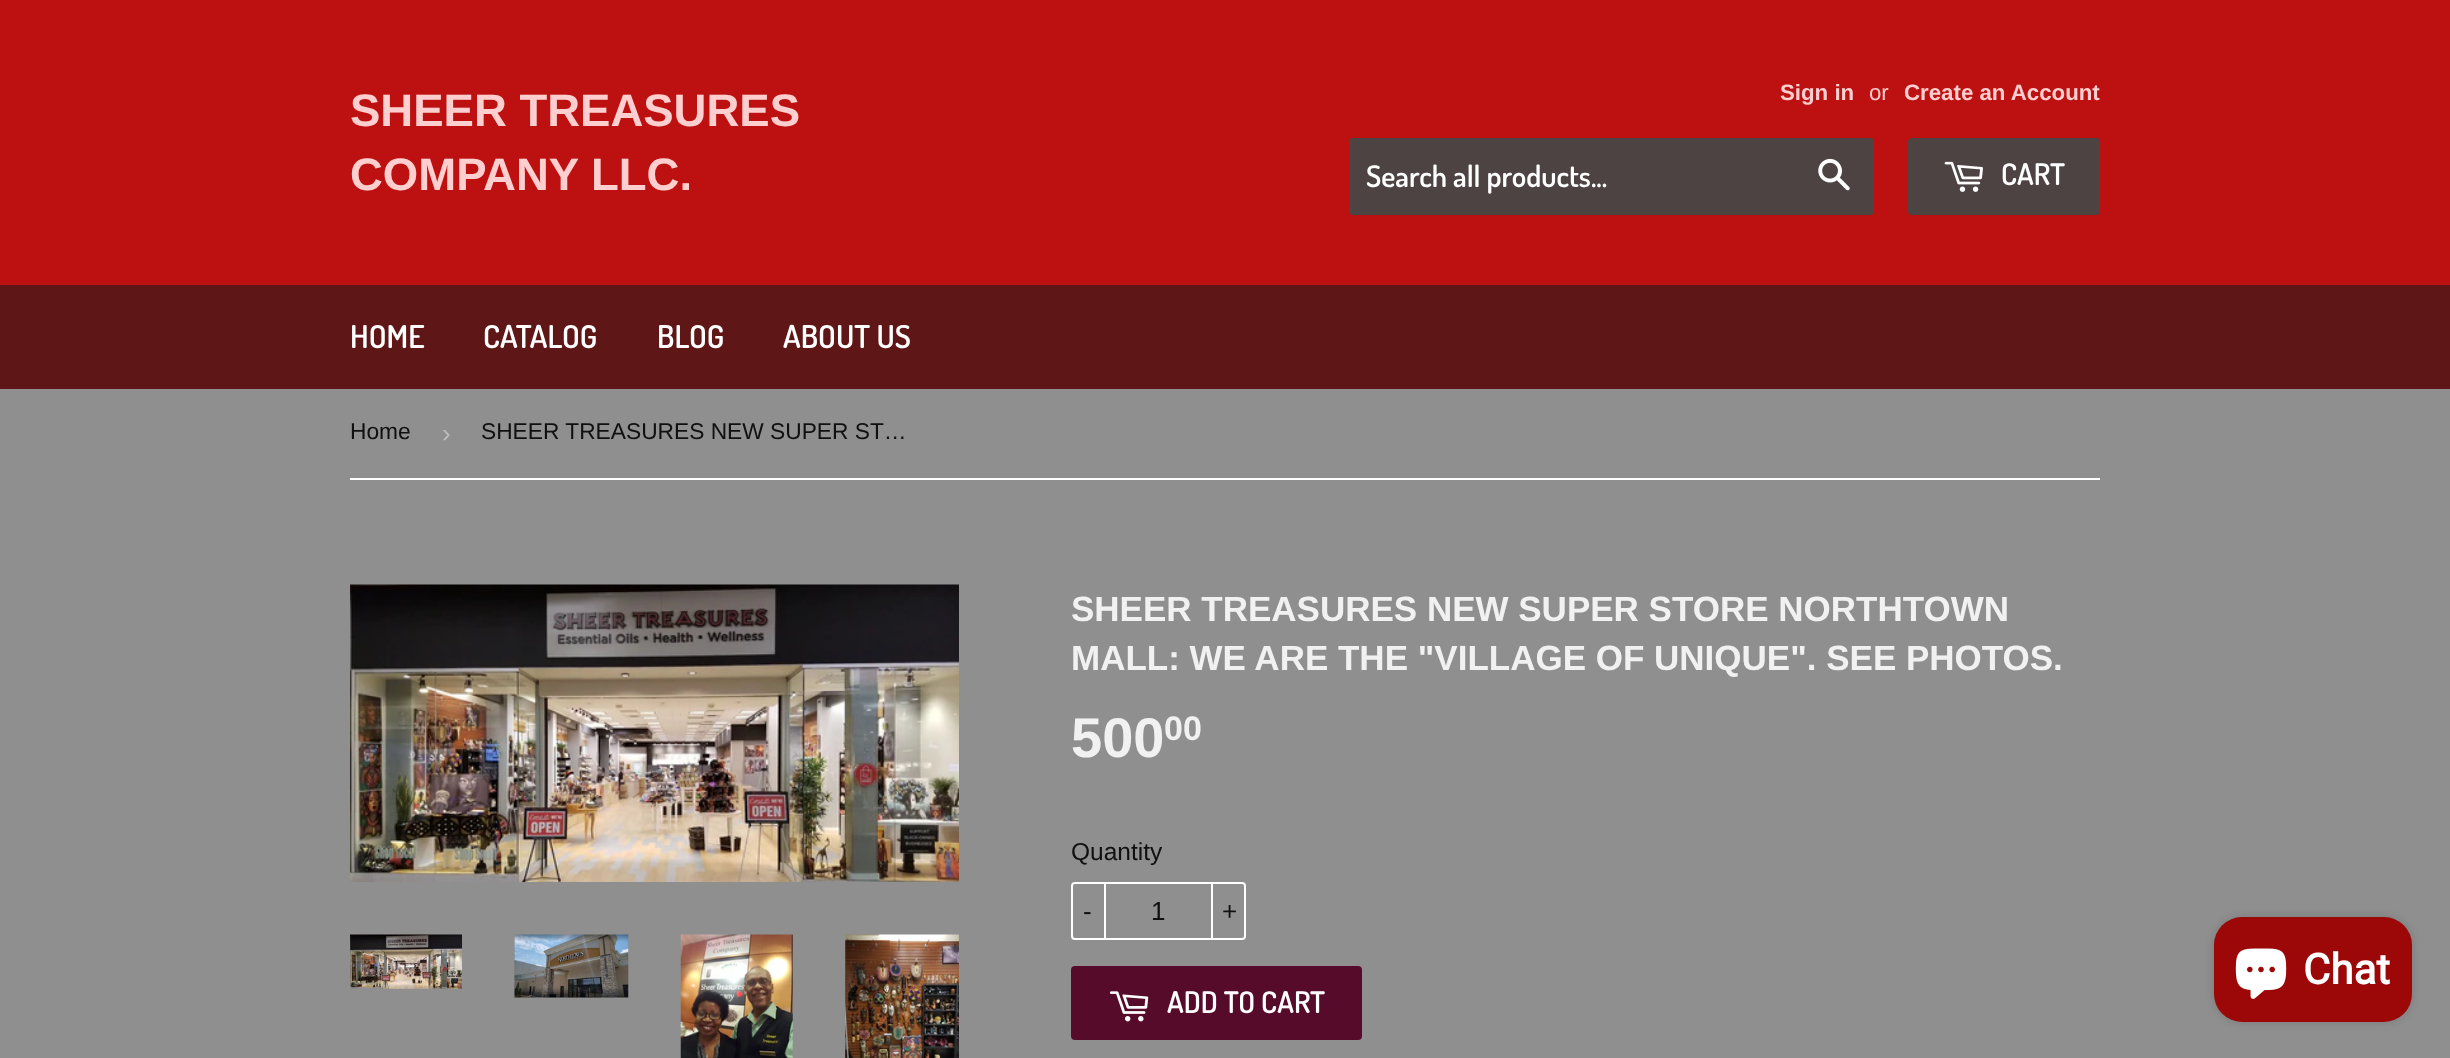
<!DOCTYPE html>
<meta charset="utf-8">
<style>body { margin: 0 } canvas { display: block }</style>
<canvas id="canvas" width="2450" height="1058"></canvas>
<script type="module">
  const canvas = document.getElementById("canvas");
  const ctx = canvas.getContext("2d");
  ctx.miterLimit = 4;
  ctx.fontKerning = "normal";
  async function loadImage(src) {
    const img = new Image();
    img.src = src;
    await img.decode();
    return img;
  }

  ctx.fillStyle = "#8f8f8f";
  ctx.fillRect(0, 0, 2450, 1058);
  ctx.fillStyle = "#bd1111";
  ctx.fillRect(0, 0, 2450, 285);
  ctx.font = "bold 45.5px Liberation Sans";
  ctx.fillStyle = "#ffcfcf";
  ctx.fillText("SHEER TREASURES", 350, 126);
  ctx.fillText("COMPANY LLC.", 350, 190);
  ctx.font = "bold 22.25px Liberation Sans";
  ctx.fillText("Sign in", 1780, 100);
  ctx.font = "22.25px Liberation Sans";
  ctx.fillText("or", 1869, 100);
  ctx.font = "bold 22.25px Liberation Sans";
  ctx.fillText("Create an Account", 1904, 100);
  ctx.fillStyle = "#4d4343";
  ctx.beginPath();
  ctx.roundRect(1349, 138, 525, 77, 4);
  ctx.fill();
  ctx.font = "600 29.75px Dosis";
  ctx.fillStyle = "#ffffff";
  ctx.fillText("Search all products...", 1366, 187);
  ctx.drawImage(await loadImage("img1.png"), 1818, 158, 32, 33);
  ctx.fillStyle = "#4d4343";
  ctx.beginPath();
  ctx.roundRect(1908, 138, 192, 77, 4);
  ctx.fill();
  ctx.drawImage(await loadImage("img2.png"), 1944, 161, 39, 31);
  ctx.fillStyle = "#ffffff";
  ctx.fillText("CART", 2001, 185);
  ctx.fillStyle = "#5e1616";
  ctx.fillRect(0, 285, 2450, 104);
  ctx.font = "600 31.5px Dosis";
  ctx.fillStyle = "#ffffff";
  ctx.fillText("HOME", 350, 348);
  ctx.fillText("CATALOG", 483, 348);
  ctx.fillText("BLOG", 657, 348);
  ctx.fillText("ABOUT US", 783, 348);
  ctx.fillRect(350, 478, 1750, 2);
  ctx.font = "22.75px Liberation Sans";
  ctx.fillStyle = "#101010";
  ctx.fillText("Home", 350, 439);
  ctx.font = "26px Liberation Sans";
  ctx.fillStyle = "#bbbbbb";
  ctx.fillText("›", 442, 442);
  ctx.font = "22.75px Liberation Sans";
  ctx.fillStyle = "#101010";
  ctx.fillText("SHEER TREASURES NEW SUPER ST…", 481, 439);
  ctx.drawImage(await loadImage("img3.png"), 350, 584, 609, 298);
  ctx.drawImage(await loadImage("img4.png"), 350, 934, 112, 55);
  ctx.drawImage(await loadImage("img5.png"), 514, 934, 115, 64);
  ctx.drawImage(await loadImage("img6.png"), 680, 934, 113, 124);
  ctx.drawImage(await loadImage("img7.png"), 845, 934, 114, 124);
  ctx.font = "bold 35px Liberation Sans";
  ctx.fillStyle = "#f1f1f1";
  ctx.fillText("SHEER TREASURES NEW SUPER STORE NORTHTOWN", 1071, 621);
  ctx.fillText("MALL: WE ARE THE \"VILLAGE OF UNIQUE\". SEE PHOTOS.", 1071, 670);
  ctx.font = "bold 56px Liberation Sans";
  ctx.fillText("500", 1071, 757);
  ctx.font = "bold 34px Liberation Sans";
  ctx.fillText("00", 1164, 740);
  ctx.font = "24.5px Liberation Sans";
  ctx.fillStyle = "#101010";
  ctx.fillText("Quantity", 1071, 860);
  ctx.beginPath();
  ctx.roundRect(1072, 883, 173, 56, 3);
  ctx.strokeStyle = "#ffffff";
  ctx.lineWidth = 2;
  ctx.stroke();
  ctx.fillStyle = "#ffffff";
  ctx.fillRect(1104, 882, 2, 58);
  ctx.font = "26px Liberation Sans";
  ctx.fillStyle = "#101010";
  ctx.fillText("-", 1083, 920);
  ctx.fillText("1", 1151, 920);
  ctx.fillStyle = "#ffffff";
  ctx.fillRect(1211, 882, 2, 58);
  ctx.fillStyle = "#101010";
  ctx.fillText("+", 1222, 920);
  ctx.fillStyle = "#570b2a";
  ctx.beginPath();
  ctx.roundRect(1071, 966, 291, 74, 4);
  ctx.fill();
  ctx.drawImage(await loadImage("img8.png"), 1109, 991, 40, 31);
  ctx.font = "600 29.75px Dosis";
  ctx.fillStyle = "#ffffff";
  ctx.fillText("ADD TO CART", 1167, 1013);
  ctx.fillStyle = "rgba(0, 0, 0, 0.15)";
  ctx.filter = "blur(4.5px)";
  ctx.beginPath();
  ctx.roundRect(2214, 917, 198, 105, 28);
  ctx.fill();
  ctx.filter = "none";
  ctx.fillStyle = "#9c0808";
  ctx.beginPath();
  ctx.roundRect(2214, 917, 198, 105, 28);
  ctx.fill();
  ctx.drawImage(await loadImage("img9.png"), 2235, 948, 52, 51);
  ctx.font = "bold 42px Roboto";
  ctx.fillStyle = "#ffffff";
  ctx.fillText("Chat", 2303, 984);
</script>
